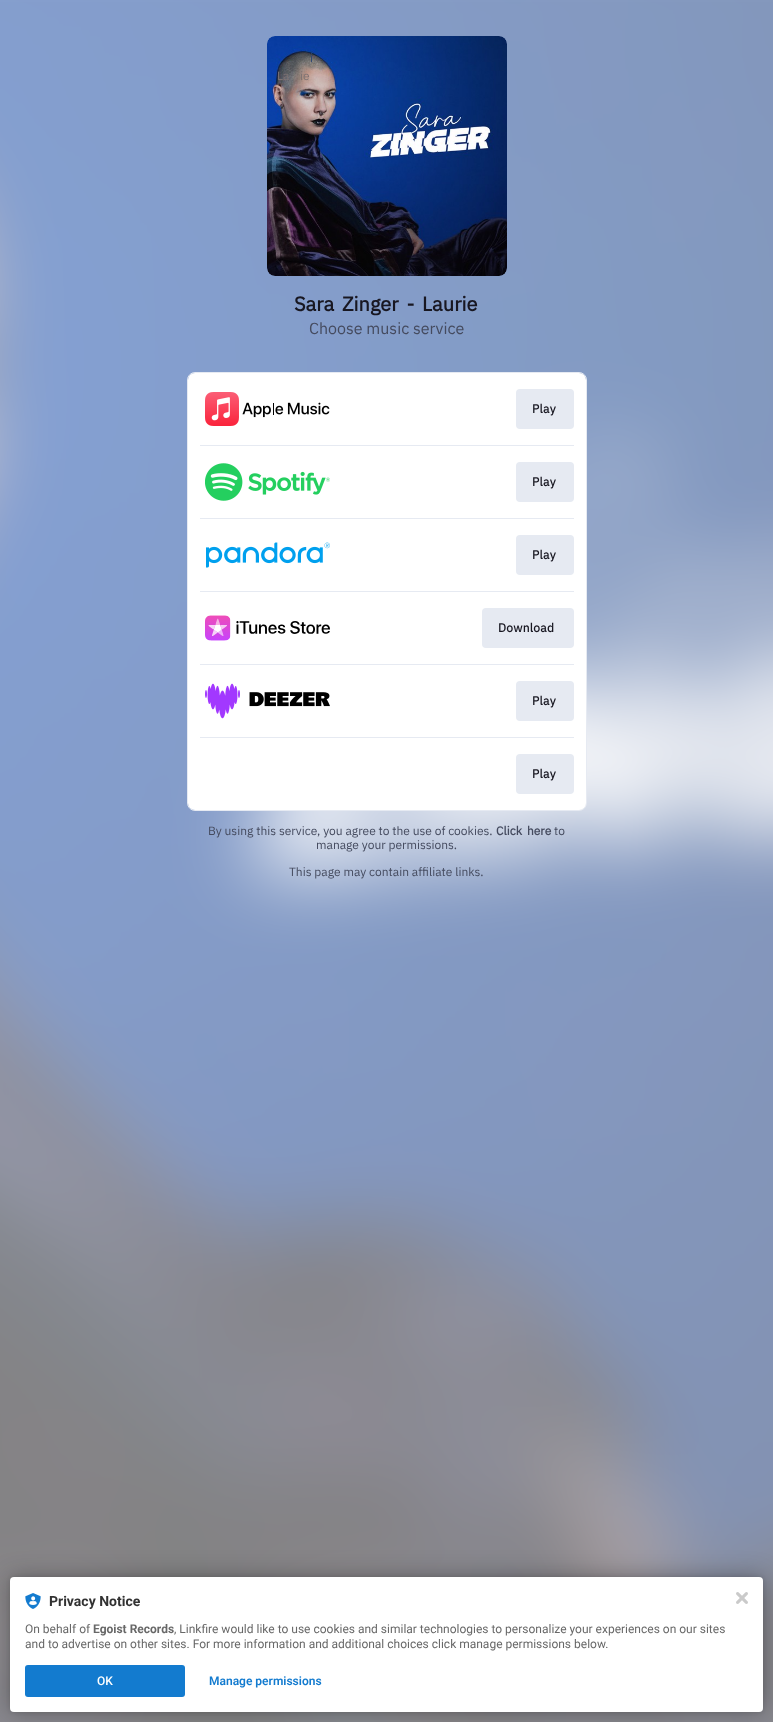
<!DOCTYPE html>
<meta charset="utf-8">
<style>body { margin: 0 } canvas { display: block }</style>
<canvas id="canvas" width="773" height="1722"></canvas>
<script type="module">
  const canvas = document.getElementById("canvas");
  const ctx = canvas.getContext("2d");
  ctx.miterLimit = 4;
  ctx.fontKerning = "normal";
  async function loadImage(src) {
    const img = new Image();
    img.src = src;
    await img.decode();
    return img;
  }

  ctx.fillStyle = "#ffffff";
  ctx.fillRect(0, 0, 773, 1722);
  ctx.drawImage(await loadImage("img1.png"), 0, 0, 773, 1722);
  ctx.drawImage(await loadImage("img2.png"), 267, 36, 240, 240);
  ctx.font = "12px IBM Plex Sans";
  ctx.fillStyle = "#324974";
  ctx.fillText("i", 310, 62);
  ctx.fillStyle = "#7e7373";
  ctx.fillText("La", 277, 80);
  ctx.fillText("ie", 300, 80);
  ctx.wordSpacing = "3px";
  ctx.font = "bold 20px IBM Plex Sans";
  ctx.fillStyle = "#181721";
  ctx.fillText("Sara Zinger - Laurie", 294, 311);
  ctx.wordSpacing = "0px";
  ctx.font = "16px IBM Plex Sans";
  ctx.fillStyle = "#454b5f";
  ctx.fillText("Choose music service", 309, 334);
  ctx.beginPath();
  ctx.roundRect(187.5, 372.5, 399, 438, 7.5);
  ctx.strokeStyle = "#e6eaf2";
  ctx.stroke();
  ctx.fillStyle = "#ffffff";
  ctx.beginPath();
  ctx.roundRect(188, 373, 398, 437, 7);
  ctx.fill();
  ctx.drawImage(await loadImage("img3.png"), 205, 392, 125, 34);
  ctx.fillStyle = "#e6eaf2";
  ctx.beginPath();
  ctx.roundRect(516, 389, 58, 40, 4);
  ctx.fill();
  ctx.letterSpacing = "0.25px";
  ctx.font = "bold 12px IBM Plex Sans";
  ctx.fillStyle = "#181721";
  ctx.fillText("Play", 532, 413);
  ctx.fillStyle = "#e6eaf2";
  ctx.fillRect(200, 445, 374, 1);
  ctx.drawImage(await loadImage("img4.png"), 205, 463, 125, 38);
  ctx.beginPath();
  ctx.roundRect(516, 462, 58, 40, 4);
  ctx.fill();
  ctx.fillStyle = "#181721";
  ctx.fillText("Play", 532, 486);
  ctx.fillStyle = "#e6eaf2";
  ctx.fillRect(200, 518, 374, 1);
  ctx.drawImage(await loadImage("img5.png"), 206, 542, 124, 26);
  ctx.beginPath();
  ctx.roundRect(516, 535, 58, 40, 4);
  ctx.fill();
  ctx.fillStyle = "#181721";
  ctx.fillText("Play", 532, 559);
  ctx.fillStyle = "#e6eaf2";
  ctx.fillRect(200, 591, 374, 1);
  ctx.drawImage(await loadImage("img6.png"), 205, 615, 125, 26);
  ctx.beginPath();
  ctx.roundRect(482, 608, 92, 40, 4);
  ctx.fill();
  ctx.fillStyle = "#181721";
  ctx.fillText("Download", 498, 632);
  ctx.fillStyle = "#e6eaf2";
  ctx.fillRect(200, 664, 374, 1);
  ctx.drawImage(await loadImage("img7.png"), 205, 683, 125, 36);
  ctx.beginPath();
  ctx.roundRect(516, 681, 58, 40, 4);
  ctx.fill();
  ctx.fillStyle = "#181721";
  ctx.fillText("Play", 532, 705);
  ctx.fillStyle = "#e6eaf2";
  ctx.fillRect(200, 737, 374, 1);
  ctx.beginPath();
  ctx.roundRect(516, 754, 58, 40, 4);
  ctx.fill();
  ctx.fillStyle = "#181721";
  ctx.fillText("Play", 532, 778);
  ctx.letterSpacing = "0px";
  ctx.font = "12px IBM Plex Sans";
  ctx.fillStyle = "#454b5f";
  ctx.fillText("By using this service, you agree to the use of cookies.", 208, 835);
  ctx.wordSpacing = "2px";
  ctx.font = "bold 12px IBM Plex Sans";
  ctx.fillText("Click here", 496, 835);
  ctx.wordSpacing = "0px";
  ctx.font = "12px IBM Plex Sans";
  ctx.fillText("to", 554, 835);
  ctx.fillText("manage your permissions.", 316, 849);
  ctx.fillText("This page may contain affiliate links.", 289, 876);
  ctx.fillStyle = "rgba(0, 0, 0, 0.12)";
  ctx.filter = "blur(2px)";
  ctx.beginPath();
  ctx.roundRect(10, 1577, 753, 135, 4);
  ctx.fill();
  ctx.filter = "none";
  ctx.fillStyle = "rgba(0, 0, 0, 0.3)";
  ctx.filter = "blur(12px)";
  ctx.beginPath();
  ctx.roundRect(10, 1577, 753, 135, 4);
  ctx.fill();
  ctx.filter = "none";
  ctx.fillStyle = "#ffffff";
  ctx.beginPath();
  ctx.roundRect(10, 1577, 753, 135, 4);
  ctx.fill();
  ctx.drawImage(await loadImage("img8.png"), 25, 1593, 16, 16);
  ctx.font = "bold 14px Roboto";
  ctx.fillStyle = "#323232";
  ctx.fillText("Privacy Notice", 49, 1606);
  ctx.font = "12px Roboto";
  ctx.fillStyle = "#686868";
  ctx.fillText("On behalf of", 25, 1633);
  ctx.font = "bold 12px Roboto";
  ctx.fillText("Egoist Records", 93, 1633);
  ctx.font = "12px Roboto";
  ctx.fillText(", Linkfire would like to use cookies and similar technologies to personalize your experiences on our sites", 174, 1633);
  ctx.fillText("and to advertise on other sites. For more information and additional choices click manage permissions below.", 25, 1648);
  ctx.fillStyle = "#137bcf";
  ctx.beginPath();
  ctx.roundRect(25, 1665, 160, 32, 3);
  ctx.fill();
  ctx.font = "500 12px Roboto";
  ctx.fillStyle = "#ffffff";
  ctx.fillText("OK", 97, 1685);
  ctx.font = "600 12px Roboto";
  ctx.fillStyle = "#137bcf";
  ctx.fillText("Manage permissions", 209, 1685);
  ctx.drawImage(await loadImage("img9.png"), 736, 1592, 12, 12);
</script>
